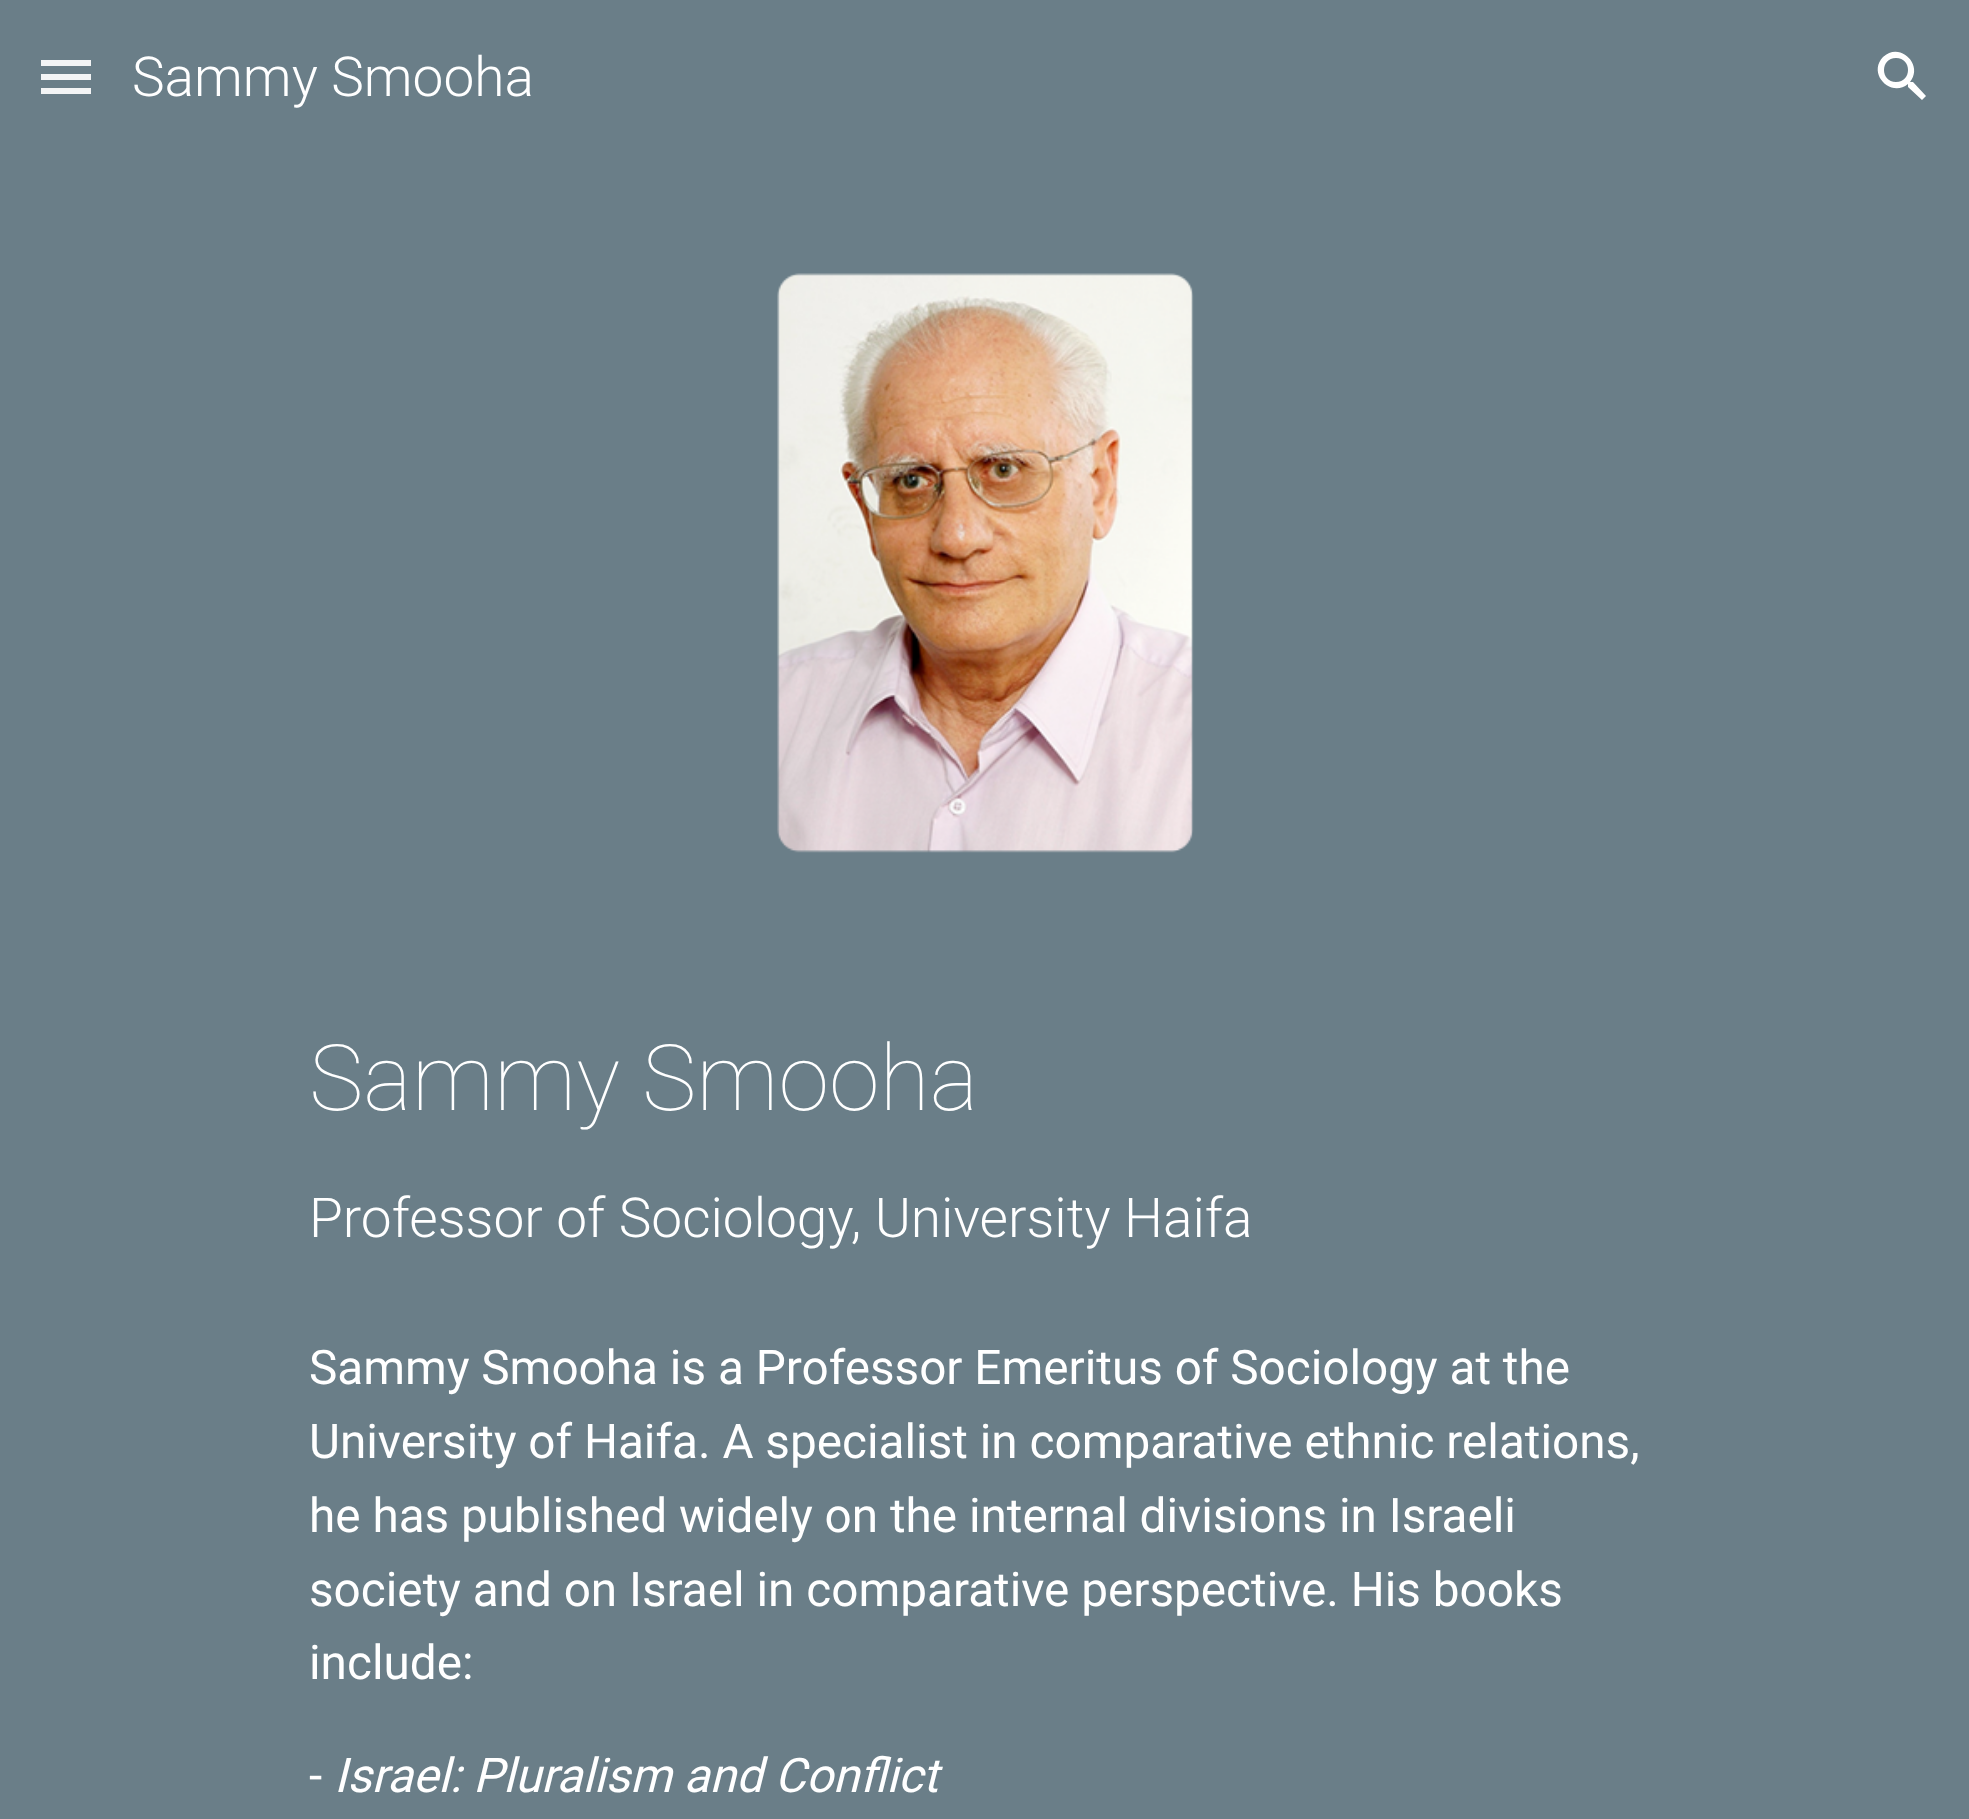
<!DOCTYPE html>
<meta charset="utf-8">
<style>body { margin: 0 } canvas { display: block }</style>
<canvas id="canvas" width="1969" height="1819"></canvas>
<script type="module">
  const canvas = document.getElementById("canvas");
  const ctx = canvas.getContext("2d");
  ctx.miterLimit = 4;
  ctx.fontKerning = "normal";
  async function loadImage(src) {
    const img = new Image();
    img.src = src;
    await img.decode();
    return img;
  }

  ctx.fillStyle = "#6a7e88";
  ctx.fillRect(0, 0, 1969, 1819);
  ctx.fillStyle = "#f3f4f5";
  ctx.fillRect(41, 60, 50, 6);
  ctx.fillRect(41, 74, 50, 6);
  ctx.fillRect(41, 88, 50, 6);
  ctx.font = "300 55px Roboto";
  ctx.fillStyle = "#ffffff";
  ctx.fillText("Sammy Smooha", 132, 96);
  ctx.beginPath();
  ctx.moveTo(1913, 82);
  ctx.lineTo(1910, 82);
  ctx.bezierCurveTo(1924, 65, 1900, 41, 1883, 57);
  ctx.bezierCurveTo(1867, 74, 1891, 98, 1908, 84);
  ctx.lineTo(1908, 87);
  ctx.lineTo(1922, 100);
  ctx.lineTo(1926, 96);
  ctx.closePath();
  ctx.moveTo(1896, 82);
  ctx.bezierCurveTo(1880, 82, 1880, 58, 1896, 58);
  ctx.bezierCurveTo(1912, 58, 1912, 82, 1896, 82);
  ctx.closePath();
  ctx.fill();
  ctx.drawImage(await loadImage("img1.png"), 777, 273, 417, 580);
  ctx.font = "100 91.75px Roboto";
  ctx.fillText("Sammy Smooha", 309, 1110);
  ctx.font = "300 55px Roboto";
  ctx.fillText("Professor of Sociology, University Haifa", 309, 1237);
  ctx.font = "47.7px Roboto";
  ctx.fillText("Sammy Smooha is a Professor Emeritus of Sociology at the", 309, 1384);
  ctx.fillText("University of Haifa. A specialist in comparative ethnic relations,", 309, 1458);
  ctx.fillText("he has published widely on the internal divisions in Israeli", 309, 1532);
  ctx.fillText("society and on Israel in comparative perspective. His books", 309, 1606);
  ctx.fillText("include:", 309, 1679);
  ctx.fillText("-", 309, 1792);
  ctx.font = "italic 47.7px Roboto";
  ctx.fillText("Israel: Pluralism and Conflict", 334, 1792);
</script>
